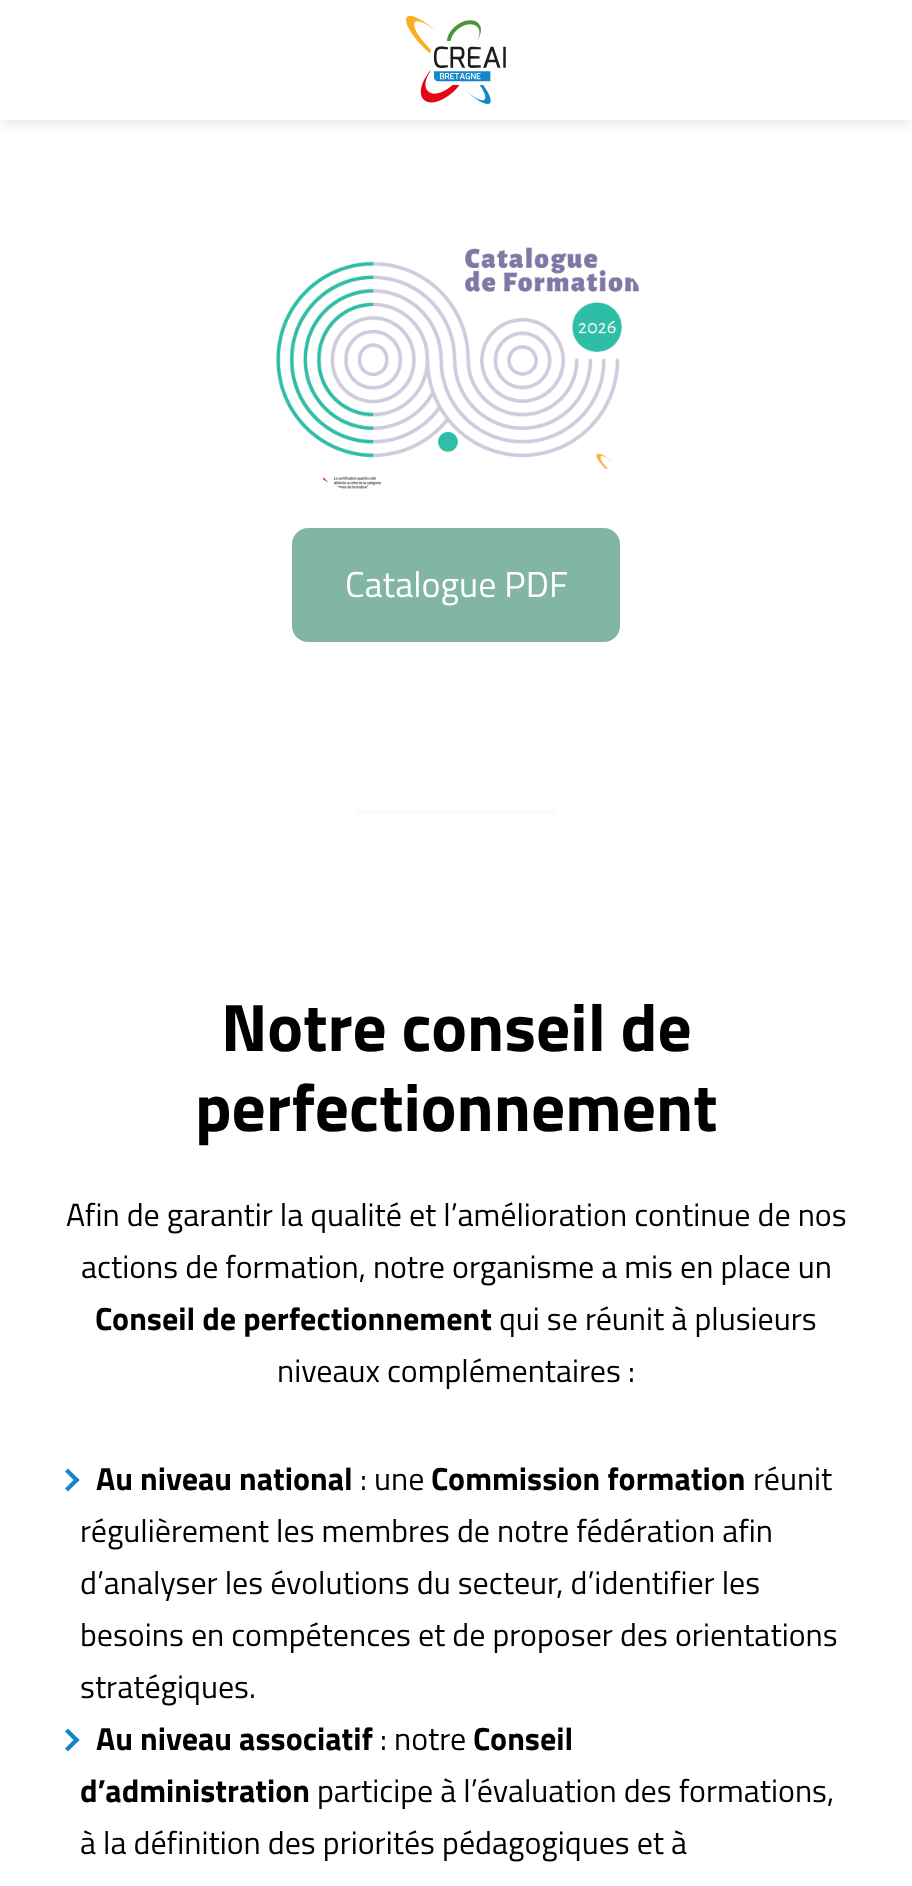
<!DOCTYPE html>
<meta charset="utf-8">
<style>body { margin: 0 } canvas { display: block }</style>
<canvas id="canvas" width="912" height="1886"></canvas>
<script type="module">
  const canvas = document.getElementById("canvas");
  const ctx = canvas.getContext("2d");
  ctx.miterLimit = 4;
  ctx.fontKerning = "normal";
  async function loadImage(src) {
    const img = new Image();
    img.src = src;
    await img.decode();
    return img;
  }

  ctx.fillStyle = "#ffffff";
  ctx.fillRect(0, 0, 912, 1886);
  ctx.fillStyle = "rgba(0, 0, 0, 0.15)";
  ctx.filter = "blur(8px)";
  ctx.beginPath();
  ctx.rect(0, 0, 912, 120);
  ctx.fill();
  ctx.filter = "none";
  ctx.fillStyle = "#ffffff";
  ctx.fillRect(0, 0, 912, 120);
  ctx.drawImage(await loadImage("img1.png"), 406, 16, 100, 88);
  ctx.drawImage(await loadImage("img2.png"), 276, 247, 364, 242);
  ctx.fillStyle = "#82b5a5";
  ctx.beginPath();
  ctx.roundRect(292, 528, 328, 114, 16);
  ctx.fill();
  ctx.font = "36px Titillium Web";
  ctx.fillStyle = "#ffffff";
  ctx.fillText("Catalogue PDF", 345, 597);
  ctx.fillStyle = "#fbfbfb";
  ctx.fillRect(356, 810, 200, 4);
  ctx.font = "bold 67.25px Titillium Web";
  ctx.fillStyle = "#000000";
  ctx.fillText("Notre conseil de", 221, 1051);
  ctx.fillText("perfectionnement", 195, 1131);
  ctx.font = "32px Titillium Web";
  ctx.fillText("Afin de garantir la qualité et l’amélioration continue de nos", 66, 1226);
  ctx.fillText("actions de formation, notre organisme a mis en place un", 81, 1278);
  ctx.font = "bold 32px Titillium Web";
  ctx.fillText("Conseil de perfectionnement", 95, 1330);
  ctx.font = "32px Titillium Web";
  ctx.fillText("qui se réunit à plusieurs", 499, 1330);
  ctx.fillText("niveaux complémentaires :", 277, 1382);
  ctx.fillStyle = "#1587c9";
  ctx.beginPath();
  ctx.moveTo(68, 1468.5);
  ctx.lineTo(79.5, 1480);
  ctx.lineTo(76.5, 1483);
  ctx.lineTo(65, 1471.5);
  ctx.closePath();
  ctx.fill();
  ctx.beginPath();
  ctx.moveTo(76.5, 1477);
  ctx.lineTo(79.5, 1480);
  ctx.lineTo(68, 1491.5);
  ctx.lineTo(65, 1488.5);
  ctx.closePath();
  ctx.fill();
  ctx.font = "bold 32px Titillium Web";
  ctx.fillStyle = "#000000";
  ctx.fillText("Au niveau national", 96, 1490);
  ctx.font = "32px Titillium Web";
  ctx.fillText(": une", 360, 1490);
  ctx.font = "bold 32px Titillium Web";
  ctx.fillText("Commission formation", 431, 1490);
  ctx.font = "32px Titillium Web";
  ctx.fillText("réunit", 753, 1490);
  ctx.fillText("régulièrement les membres de notre fédération afin", 80, 1542);
  ctx.fillText("d’analyser les évolutions du secteur, d’identifier les", 80, 1594);
  ctx.fillText("besoins en compétences et de proposer des orientations", 80, 1646);
  ctx.fillText("stratégiques.", 80, 1698);
  ctx.fillStyle = "#1587c9";
  ctx.beginPath();
  ctx.moveTo(68, 1728.5);
  ctx.lineTo(79.5, 1740);
  ctx.lineTo(76.5, 1743);
  ctx.lineTo(65, 1731.5);
  ctx.closePath();
  ctx.fill();
  ctx.beginPath();
  ctx.moveTo(76.5, 1737);
  ctx.lineTo(79.5, 1740);
  ctx.lineTo(68, 1751.5);
  ctx.lineTo(65, 1748.5);
  ctx.closePath();
  ctx.fill();
  ctx.font = "bold 32px Titillium Web";
  ctx.fillStyle = "#000000";
  ctx.fillText("Au niveau associatif", 96, 1750);
  ctx.font = "32px Titillium Web";
  ctx.fillText(": notre", 380, 1750);
  ctx.font = "bold 32px Titillium Web";
  ctx.fillText("Conseil", 473, 1750);
  ctx.fillText("d’administration", 80, 1802);
  ctx.font = "32px Titillium Web";
  ctx.fillText("participe à l’évaluation des formations,", 317, 1802);
  ctx.fillText("à la définition des priorités pédagogiques et à", 80, 1854);
</script>
